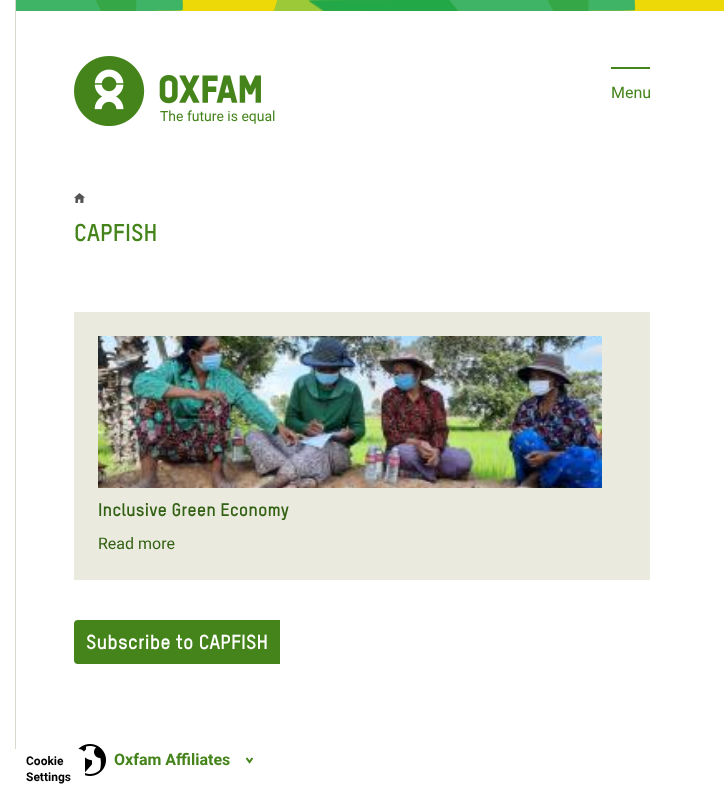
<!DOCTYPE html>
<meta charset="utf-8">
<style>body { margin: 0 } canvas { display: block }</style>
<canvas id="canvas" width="724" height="801"></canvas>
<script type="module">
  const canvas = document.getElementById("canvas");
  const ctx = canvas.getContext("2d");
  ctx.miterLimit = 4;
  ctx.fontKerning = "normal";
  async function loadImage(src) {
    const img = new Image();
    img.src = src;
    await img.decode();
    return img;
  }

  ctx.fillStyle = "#ffffff";
  ctx.fillRect(0, 0, 724, 801);
  ctx.drawImage(await loadImage("img1.png"), 16, 0, 708, 11);
  ctx.fillStyle = "#44841a";
  ctx.fillRect(611, 67, 39, 2);
  ctx.font = "16px Roboto";
  ctx.fillText("Menu", 611, 98);
  ctx.drawImage(await loadImage("img2.png"), 74, 56, 187, 70);
  ctx.font = "14px Roboto";
  ctx.fillText("The future is equal", 160, 121);
  ctx.drawImage(await loadImage("img3.png"), 74, 193, 11, 10);
  ctx.font = "bold 24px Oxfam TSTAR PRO";
  ctx.fillText("CAPFISH", 74, 241);
  ctx.fillStyle = "#eaeade";
  ctx.fillRect(74, 312, 576, 268);
  ctx.drawImage(await loadImage("img4.png"), 98, 336, 504, 152);
  ctx.font = "bold 18px Oxfam TSTAR PRO";
  ctx.fillStyle = "#336114";
  ctx.fillText("Inclusive Green Economy", 98, 516);
  ctx.font = "16px Roboto";
  ctx.fillText("Read more", 98, 549);
  ctx.fillStyle = "#44841a";
  ctx.beginPath();
  ctx.roundRect(74, 620, 206, 44, [4, 0, 0, 4]);
  ctx.fill();
  ctx.font = "bold 20px Oxfam TSTAR PRO";
  ctx.fillStyle = "#ffffff";
  ctx.fillText("Subscribe to CAPFISH", 86, 649);
  ctx.drawImage(await loadImage("img5.png"), 78, 744, 28, 32);
  ctx.font = "bold 16px Roboto";
  ctx.fillStyle = "#44841a";
  ctx.fillText("Oxfam Affiliates", 114, 765);
  ctx.beginPath();
  ctx.moveTo(252.5, 758);
  ctx.lineTo(249.5, 762);
  ctx.lineTo(246.5, 758);
  ctx.strokeStyle = "#44841a";
  ctx.lineWidth = 2;
  ctx.stroke();
  ctx.fillStyle = "#d9d9ce";
  ctx.fillRect(15, 0, 1, 749);
  ctx.fillStyle = "#ffffff";
  ctx.beginPath();
  ctx.roundRect(15, 749, 70, 52, [0, 6, 0, 0]);
  ctx.fill();
  ctx.font = "bold 12px Roboto";
  ctx.fillStyle = "#000000";
  ctx.fillText("Cookie", 26, 765);
  ctx.fillText("Settings", 26, 781);
</script>
